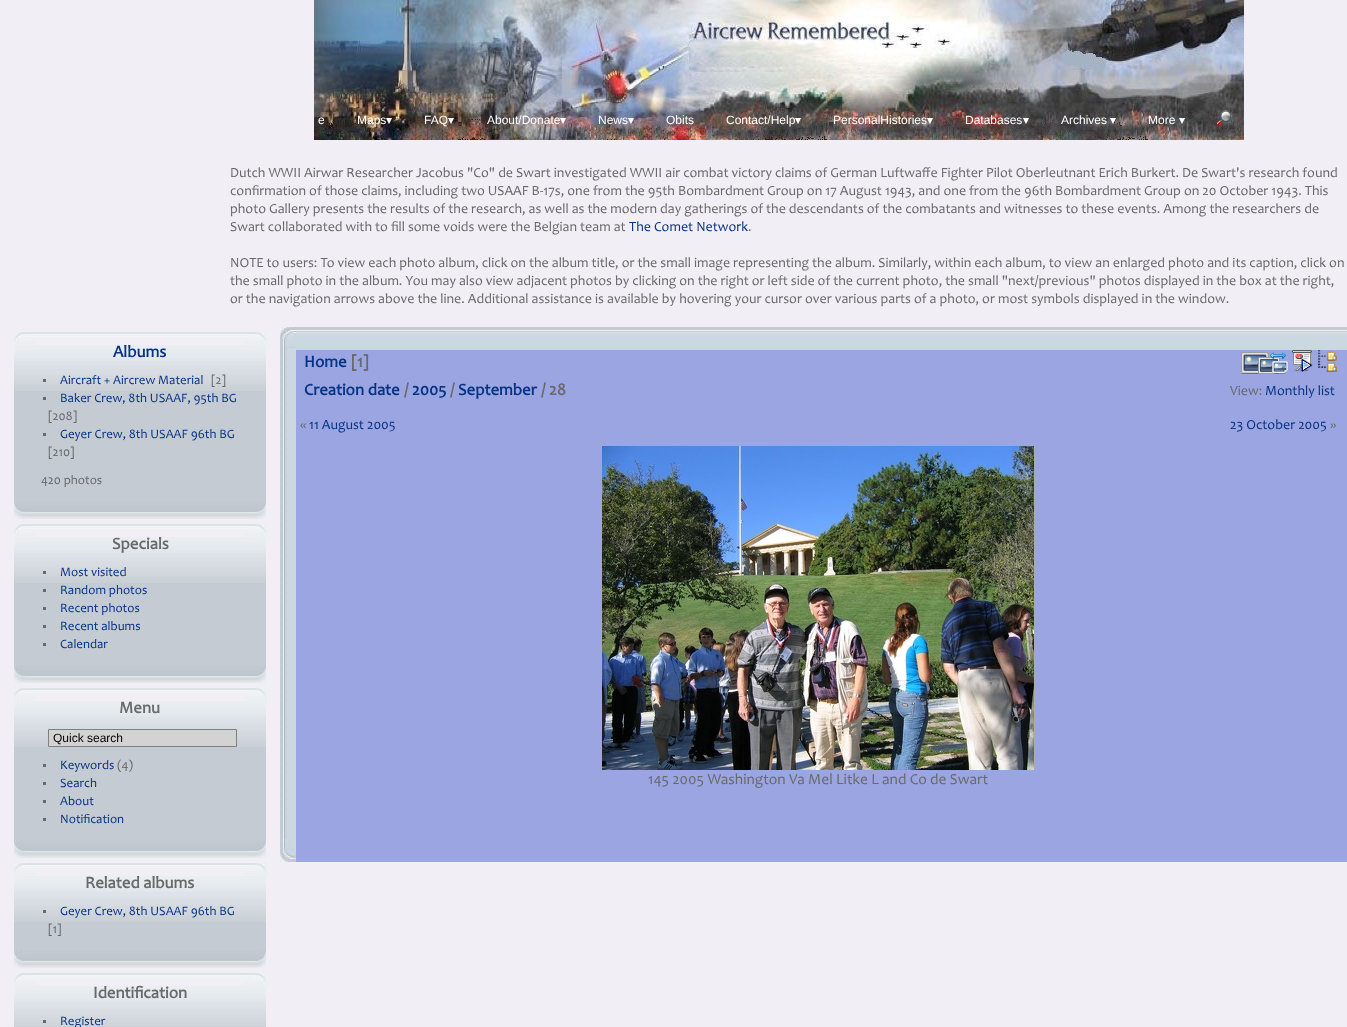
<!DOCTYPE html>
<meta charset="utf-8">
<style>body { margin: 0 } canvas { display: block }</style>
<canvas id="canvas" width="1347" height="1027"></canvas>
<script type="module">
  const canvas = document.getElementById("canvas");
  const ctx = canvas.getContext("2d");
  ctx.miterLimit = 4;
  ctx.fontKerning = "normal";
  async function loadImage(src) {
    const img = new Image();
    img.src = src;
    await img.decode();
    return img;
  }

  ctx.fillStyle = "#f1eef5";
  ctx.fillRect(0, 0, 1347, 1027);
  ctx.drawImage(await loadImage("img1.png"), 314, 0, 930, 140);
  ctx.font = "12px Liberation Sans";
  ctx.fillStyle = "#ffffff";
  ctx.fillText("e", 318, 124);
  ctx.fillText("Maps", 357, 124);
  ctx.font = "12px DejaVu Sans";
  ctx.fillText("▾", 386, 124);
  ctx.font = "12px Liberation Sans";
  ctx.fillText("FAQ", 424, 124);
  ctx.font = "12px DejaVu Sans";
  ctx.fillText("▾", 448, 124);
  ctx.font = "12px Liberation Sans";
  ctx.fillText("About/Donate", 487, 124);
  ctx.font = "12px DejaVu Sans";
  ctx.fillText("▾", 560, 124);
  ctx.font = "12px Liberation Sans";
  ctx.fillText("News", 598, 124);
  ctx.font = "12px DejaVu Sans";
  ctx.fillText("▾", 628, 124);
  ctx.font = "12px Liberation Sans";
  ctx.fillText("Obits", 666, 124);
  ctx.fillText("Contact/Help", 726, 124);
  ctx.font = "12px DejaVu Sans";
  ctx.fillText("▾", 795, 124);
  ctx.font = "12px Liberation Sans";
  ctx.fillText("PersonalHistories", 833, 124);
  ctx.font = "12px DejaVu Sans";
  ctx.fillText("▾", 927, 124);
  ctx.font = "12px Liberation Sans";
  ctx.fillText("Databases", 965, 124);
  ctx.font = "12px DejaVu Sans";
  ctx.fillText("▾", 1023, 124);
  ctx.font = "12px Liberation Sans";
  ctx.fillText("Archives", 1061, 124);
  ctx.font = "12px DejaVu Sans";
  ctx.fillText("▾", 1110, 124);
  ctx.font = "12px Liberation Sans";
  ctx.fillText("More", 1148, 124);
  ctx.font = "12px DejaVu Sans";
  ctx.fillText("▾", 1179, 124);
  ctx.drawImage(await loadImage("img2.png"), 1217, 110, 15, 15);
  ctx.font = "14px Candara";
  ctx.fillStyle = "#696969";
  ctx.fillText("Dutch WWII Airwar Researcher Jacobus \"Co\" de Swart investigated WWII air combat victory claims of German Luftwaffe Fighter Pilot Oberleutnant Erich Burkert. De Swart's research found", 230, 177);
  ctx.fillText("confirmation of those claims, including two USAAF B-17s, one from the 95th Bombardment Group on 17 August 1943, and one from the 96th Bombardment Group on 20 October 1943. This", 230, 195);
  ctx.fillText("photo Gallery presents the results of the research, as well as the modern day gatherings of the descendants of the combatants and witnesses to these events. Among the researchers de", 230, 213);
  ctx.fillText("Swart collaborated with to fill some voids were the Belgian team at", 230, 231);
  ctx.fillStyle = "#063384";
  ctx.fillText("The Comet Network", 629, 231);
  ctx.fillStyle = "#696969";
  ctx.fillText(".", 748, 231);
  ctx.fillText("NOTE to users: To view each photo album, click on the album title, or the small image representing the album. Similarly, within each album, to view an enlarged photo and its caption, click on", 230, 267);
  ctx.fillText("the small photo in the album. You may also view adjacent photos by clicking on the right or left side of the current photo, the small \"next/previous\" photos displayed in the box at the right,", 230, 285);
  ctx.fillText("or the navigation arrows above the line. Additional assistance is available by hovering your cursor over various parts of a photo, or most symbols displayed in the window.", 230, 303);
  ctx.drawImage(await loadImage("img3.png"), 14, 331, 22, 14);
  ctx.drawImage(await loadImage("img4.png"), 36, 332, 208, 5);
  ctx.drawImage(await loadImage("img5.png"), 244, 331, 22, 14);
  ctx.fillStyle = "#c4cbd3";
  ctx.fillRect(14, 391, 252, 110);
  ctx.drawImage(await loadImage("img6.png"), 14, 345, 22, 46);
  ctx.drawImage(await loadImage("img7.png"), 36, 345, 208, 46);
  ctx.font = "bold 16.75px Candara";
  ctx.fillStyle = "#063384";
  ctx.fillText("Albums", 113, 357);
  ctx.fillStyle = "#696969";
  ctx.fillRect(43, 379, 3, 3);
  ctx.font = "12.9px Candara";
  ctx.fillStyle = "#063384";
  ctx.fillText("Aircraft + Aircrew Material", 60, 384);
  ctx.fillStyle = "#696969";
  ctx.fillText("[2]", 211, 384);
  ctx.fillRect(43, 397, 3, 3);
  ctx.fillStyle = "#063384";
  ctx.fillText("Baker Crew, 8th USAAF, 95th BG", 60, 402);
  ctx.fillStyle = "#696969";
  ctx.fillText("[208]", 48, 420);
  ctx.fillRect(43, 433, 3, 3);
  ctx.fillStyle = "#063384";
  ctx.fillText("Geyer Crew, 8th USAAF 96th BG", 60, 438);
  ctx.fillStyle = "#696969";
  ctx.fillText("[210]", 48, 456);
  ctx.fillText("420 photos", 41, 484);
  ctx.drawImage(await loadImage("img6.png"), 244, 345, 22, 46);
  ctx.drawImage(await loadImage("img8.png"), 14, 501, 22, 18);
  ctx.drawImage(await loadImage("img9.png"), 36, 501, 208, 18);
  ctx.drawImage(await loadImage("img10.png"), 244, 501, 22, 18);
  ctx.drawImage(await loadImage("img3.png"), 14, 523, 22, 14);
  ctx.drawImage(await loadImage("img4.png"), 36, 524, 208, 5);
  ctx.drawImage(await loadImage("img5.png"), 244, 523, 22, 14);
  ctx.fillStyle = "#c4cbd3";
  ctx.fillRect(14, 583, 252, 82);
  ctx.drawImage(await loadImage("img6.png"), 14, 537, 22, 46);
  ctx.drawImage(await loadImage("img7.png"), 36, 537, 208, 46);
  ctx.font = "bold 16.75px Candara";
  ctx.fillStyle = "#696969";
  ctx.fillText("Specials", 112, 549);
  ctx.fillRect(43, 571, 3, 3);
  ctx.font = "12.9px Candara";
  ctx.fillStyle = "#063384";
  ctx.fillText("Most visited", 60, 576);
  ctx.fillStyle = "#696969";
  ctx.fillRect(43, 589, 3, 3);
  ctx.fillStyle = "#063384";
  ctx.fillText("Random photos", 60, 594);
  ctx.fillStyle = "#696969";
  ctx.fillRect(43, 607, 3, 3);
  ctx.fillStyle = "#063384";
  ctx.fillText("Recent photos", 60, 612);
  ctx.fillStyle = "#696969";
  ctx.fillRect(43, 625, 3, 3);
  ctx.fillStyle = "#063384";
  ctx.fillText("Recent albums", 60, 630);
  ctx.fillStyle = "#696969";
  ctx.fillRect(43, 643, 3, 3);
  ctx.fillStyle = "#063384";
  ctx.fillText("Calendar", 60, 648);
  ctx.drawImage(await loadImage("img6.png"), 244, 537, 22, 46);
  ctx.drawImage(await loadImage("img8.png"), 14, 665, 22, 18);
  ctx.drawImage(await loadImage("img9.png"), 36, 665, 208, 18);
  ctx.drawImage(await loadImage("img10.png"), 244, 665, 22, 18);
  ctx.drawImage(await loadImage("img3.png"), 14, 687, 22, 14);
  ctx.drawImage(await loadImage("img4.png"), 36, 688, 208, 5);
  ctx.drawImage(await loadImage("img5.png"), 244, 687, 22, 14);
  ctx.fillStyle = "#c4cbd3";
  ctx.fillRect(14, 747, 252, 93);
  ctx.drawImage(await loadImage("img6.png"), 14, 701, 22, 46);
  ctx.drawImage(await loadImage("img7.png"), 36, 701, 208, 46);
  ctx.font = "bold 16.75px Candara";
  ctx.fillStyle = "#696969";
  ctx.fillText("Menu", 119, 713);
  ctx.fillStyle = "#d3d3d3";
  ctx.beginPath();
  ctx.rect(48.5, 729.5, 188, 17);
  ctx.fill();
  ctx.strokeStyle = "#808080";
  ctx.stroke();
  ctx.font = "12px Liberation Sans";
  ctx.fillStyle = "#000000";
  ctx.fillText("Quick search", 53, 742);
  ctx.fillStyle = "#696969";
  ctx.fillRect(43, 764, 3, 3);
  ctx.font = "12.9px Candara";
  ctx.fillStyle = "#063384";
  ctx.fillText("Keywords", 60, 769);
  ctx.fillStyle = "#696969";
  ctx.fillText("(4)", 117, 769);
  ctx.fillRect(43, 782, 3, 3);
  ctx.fillStyle = "#063384";
  ctx.fillText("Search", 60, 787);
  ctx.fillStyle = "#696969";
  ctx.fillRect(43, 800, 3, 3);
  ctx.fillStyle = "#063384";
  ctx.fillText("About", 60, 805);
  ctx.fillStyle = "#696969";
  ctx.fillRect(43, 818, 3, 3);
  ctx.fillStyle = "#063384";
  ctx.fillText("Notification", 60, 823);
  ctx.drawImage(await loadImage("img6.png"), 244, 701, 22, 46);
  ctx.drawImage(await loadImage("img8.png"), 14, 840, 22, 18);
  ctx.drawImage(await loadImage("img9.png"), 36, 840, 208, 18);
  ctx.drawImage(await loadImage("img10.png"), 244, 840, 22, 18);
  ctx.drawImage(await loadImage("img3.png"), 14, 862, 22, 14);
  ctx.drawImage(await loadImage("img4.png"), 36, 863, 208, 5);
  ctx.drawImage(await loadImage("img5.png"), 244, 862, 22, 14);
  ctx.fillStyle = "#c4cbd3";
  ctx.fillRect(14, 922, 252, 28);
  ctx.drawImage(await loadImage("img6.png"), 14, 876, 22, 46);
  ctx.drawImage(await loadImage("img7.png"), 36, 876, 208, 46);
  ctx.font = "bold 16.75px Candara";
  ctx.fillStyle = "#696969";
  ctx.fillText("Related albums", 85, 888);
  ctx.fillRect(43, 910, 3, 3);
  ctx.font = "12.9px Candara";
  ctx.fillStyle = "#063384";
  ctx.fillText("Geyer Crew, 8th USAAF 96th BG", 60, 915);
  ctx.fillStyle = "#696969";
  ctx.fillText("[1]", 48, 933);
  ctx.drawImage(await loadImage("img6.png"), 244, 876, 22, 46);
  ctx.drawImage(await loadImage("img8.png"), 14, 950, 22, 18);
  ctx.drawImage(await loadImage("img9.png"), 36, 950, 208, 18);
  ctx.drawImage(await loadImage("img10.png"), 244, 950, 22, 18);
  ctx.drawImage(await loadImage("img3.png"), 14, 972, 22, 14);
  ctx.drawImage(await loadImage("img4.png"), 36, 973, 208, 5);
  ctx.drawImage(await loadImage("img5.png"), 244, 972, 22, 14);
  ctx.drawImage(await loadImage("img11.png"), 14, 986, 22, 41);
  ctx.drawImage(await loadImage("img12.png"), 36, 986, 208, 41);
  ctx.font = "bold 16.75px Candara";
  ctx.fillText("Identification", 93, 998);
  ctx.fillRect(43, 1020, 3, 3);
  ctx.font = "12.9px Candara";
  ctx.fillStyle = "#063384";
  ctx.fillText("Register", 60, 1025);
  ctx.drawImage(await loadImage("img11.png"), 244, 986, 22, 41);
  ctx.fillStyle = "#9aa5e1";
  ctx.fillRect(296, 350, 1051, 512);
  ctx.drawImage(await loadImage("img13.png"), 280, 327, 16, 23);
  ctx.drawImage(await loadImage("img14.png"), 296, 327, 1044, 23);
  ctx.drawImage(await loadImage("img15.png"), 1340, 327, 7, 23);
  ctx.drawImage(await loadImage("img16.png"), 280, 350, 16, 489);
  ctx.font = "bold 16.75px Candara";
  ctx.fillStyle = "#063384";
  ctx.fillText("Home", 304, 367);
  ctx.fillStyle = "#696969";
  ctx.fillText("[1]", 351, 367);
  ctx.drawImage(await loadImage("img17.png"), 1241, 352, 47, 22);
  ctx.drawImage(await loadImage("img18.png"), 1292, 350, 21, 22);
  ctx.drawImage(await loadImage("img19.png"), 1318, 350, 19, 22);
  ctx.fillStyle = "#063384";
  ctx.fillText("Creation date", 304, 395);
  ctx.fillStyle = "#696969";
  ctx.fillText("/", 404, 395);
  ctx.fillStyle = "#063384";
  ctx.fillText("2005", 412, 395);
  ctx.fillStyle = "#696969";
  ctx.fillText("/", 450, 395);
  ctx.fillStyle = "#063384";
  ctx.fillText("September", 458, 395);
  ctx.fillStyle = "#696969";
  ctx.fillText("/ 28", 541, 395);
  ctx.font = "14px Candara";
  ctx.fillText("View:", 1230, 395);
  ctx.fillStyle = "#063384";
  ctx.fillText("Monthly list", 1265, 395);
  ctx.fillStyle = "#696969";
  ctx.fillText("«", 300, 429);
  ctx.fillStyle = "#063384";
  ctx.fillText("11 August 2005", 309, 429);
  ctx.fillText("23 October 2005", 1230, 429);
  ctx.fillStyle = "#696969";
  ctx.fillText("»", 1330, 429);
  ctx.beginPath();
  ctx.roundRect(601.5, 443.5, 433, 328, 3.5);
  ctx.strokeStyle = "#aaaaaa";
  ctx.stroke();
  ctx.drawImage(await loadImage("img20.png"), 602, 446, 432, 324);
  ctx.font = "15.4px Candara";
  ctx.fillText("145 2005 Washington Va Mel Litke L and Co de Swart", 648, 784);
  ctx.drawImage(await loadImage("img21.png"), 280, 839, 16, 23);
</script>
